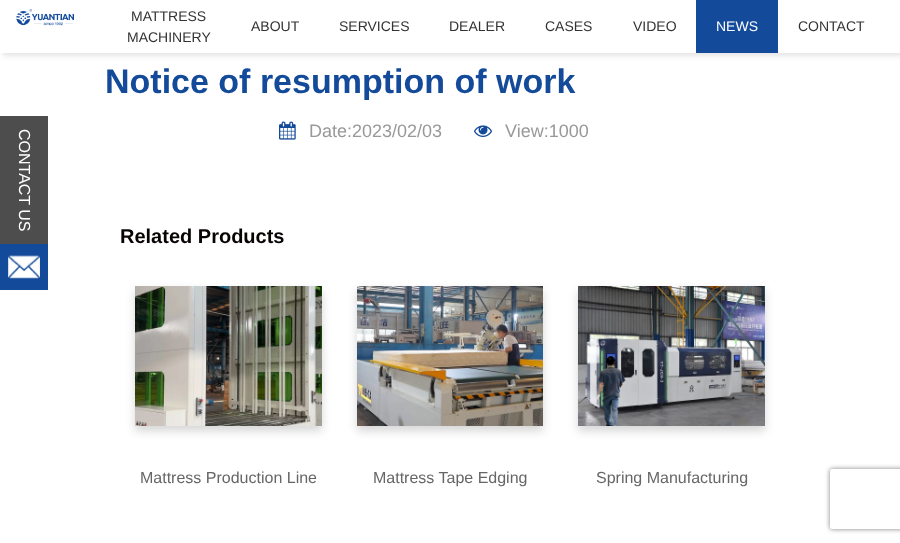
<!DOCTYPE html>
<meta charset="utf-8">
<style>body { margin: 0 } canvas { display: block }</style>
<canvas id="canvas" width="900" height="543"></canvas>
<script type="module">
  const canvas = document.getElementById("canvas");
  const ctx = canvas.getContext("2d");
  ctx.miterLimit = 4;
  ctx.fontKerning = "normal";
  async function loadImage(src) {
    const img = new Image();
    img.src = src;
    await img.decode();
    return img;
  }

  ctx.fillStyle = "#ffffff";
  ctx.fillRect(0, 0, 900, 543);
  ctx.fillStyle = "#4d4d4d";
  ctx.fillRect(0, 116, 48, 128);
  ctx.font = "16px Liberation Sans";
  ctx.fillStyle = "#ffffff";
  ctx.save();
  ctx.translate(19, 129);
  ctx.rotate(90 * Math.PI / 180);
  ctx.fillText("CONTACT US", 0, 0);
  ctx.restore();
  ctx.fillStyle = "#144a9a";
  ctx.fillRect(0, 244, 48, 46);
  ctx.drawImage(await loadImage("img1.png"), 8, 255, 32, 24);
  ctx.fillStyle = "rgba(0, 0, 0, 0.1)";
  ctx.filter = "blur(2.5px)";
  ctx.beginPath();
  ctx.rect(3, 3, 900, 53);
  ctx.fill();
  ctx.filter = "none";
  ctx.fillStyle = "#ffffff";
  ctx.fillRect(0, 0, 900, 53);
  ctx.drawImage(await loadImage("img2.png"), 16, 9, 58, 17);
  ctx.font = "14px Liberation Sans";
  ctx.fillStyle = "#333333";
  ctx.fillText("MATTRESS", 131, 21);
  ctx.fillText("MACHINERY", 127, 42);
  ctx.fillText("ABOUT", 251, 31);
  ctx.fillText("SERVICES", 339, 31);
  ctx.fillText("DEALER", 449, 31);
  ctx.fillText("CASES", 545, 31);
  ctx.fillText("VIDEO", 633, 31);
  ctx.fillStyle = "#144a9a";
  ctx.fillRect(696, 0, 82, 53);
  ctx.fillStyle = "#ffffff";
  ctx.fillText("NEWS", 716, 31);
  ctx.fillStyle = "#333333";
  ctx.fillText("CONTACT", 798, 31);
  ctx.font = "bold 34px Liberation Sans";
  ctx.fillStyle = "#144a9a";
  ctx.fillText("Notice of resumption of work", 105, 93);
  ctx.drawImage(await loadImage("img3.png"), 279, 121, 17, 19);
  ctx.font = "18px Liberation Sans";
  ctx.fillStyle = "#999999";
  ctx.fillText("Date:2023/02/03", 309, 137);
  ctx.drawImage(await loadImage("img4.png"), 474, 125, 18, 12);
  ctx.fillText("View:1000", 505, 137);
  ctx.font = "bold 20px Liberation Sans";
  ctx.fillStyle = "#090404";
  ctx.fillText("Related Products", 120, 243);
  ctx.fillStyle = "rgba(0, 0, 0, 0.16)";
  ctx.filter = "blur(5px)";
  ctx.beginPath();
  ctx.rect(135, 291, 187, 140);
  ctx.fill();
  ctx.filter = "none";
  ctx.drawImage(await loadImage("img5.png"), 135, 286, 187, 140);
  ctx.font = "16px Liberation Sans";
  ctx.fillStyle = "#666666";
  ctx.fillText("Mattress Production Line", 140, 483);
  ctx.fillStyle = "rgba(0, 0, 0, 0.16)";
  ctx.filter = "blur(5px)";
  ctx.beginPath();
  ctx.rect(357, 291, 186, 140);
  ctx.fill();
  ctx.filter = "none";
  ctx.drawImage(await loadImage("img6.png"), 357, 286, 186, 140);
  ctx.fillStyle = "#666666";
  ctx.fillText("Mattress Tape Edging", 373, 483);
  ctx.fillStyle = "rgba(0, 0, 0, 0.16)";
  ctx.filter = "blur(5px)";
  ctx.beginPath();
  ctx.rect(578, 291, 187, 140);
  ctx.fill();
  ctx.filter = "none";
  ctx.drawImage(await loadImage("img7.png"), 578, 286, 187, 140);
  ctx.fillStyle = "#666666";
  ctx.fillText("Spring Manufacturing", 596, 483);
  ctx.save();
  ctx.beginPath();
  ctx.moveTo(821, 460);
  ctx.lineTo(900, 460);
  ctx.lineTo(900, 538);
  ctx.lineTo(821, 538);
  ctx.closePath();
  ctx.moveTo(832, 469);
  ctx.lineTo(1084, 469);
  ctx.bezierCurveTo(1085, 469, 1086, 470, 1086, 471);
  ctx.lineTo(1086, 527);
  ctx.bezierCurveTo(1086, 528, 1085, 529, 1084, 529);
  ctx.lineTo(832, 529);
  ctx.bezierCurveTo(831, 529, 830, 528, 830, 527);
  ctx.lineTo(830, 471);
  ctx.bezierCurveTo(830, 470, 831, 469, 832, 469);
  ctx.closePath();
  ctx.clip("evenodd");
  ctx.fillStyle = "#808080";
  ctx.filter = "blur(2.5px)";
  ctx.beginPath();
  ctx.roundRect(830, 469, 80, 60, 2);
  ctx.fill();
  ctx.filter = "none";
  ctx.restore();
</script>
